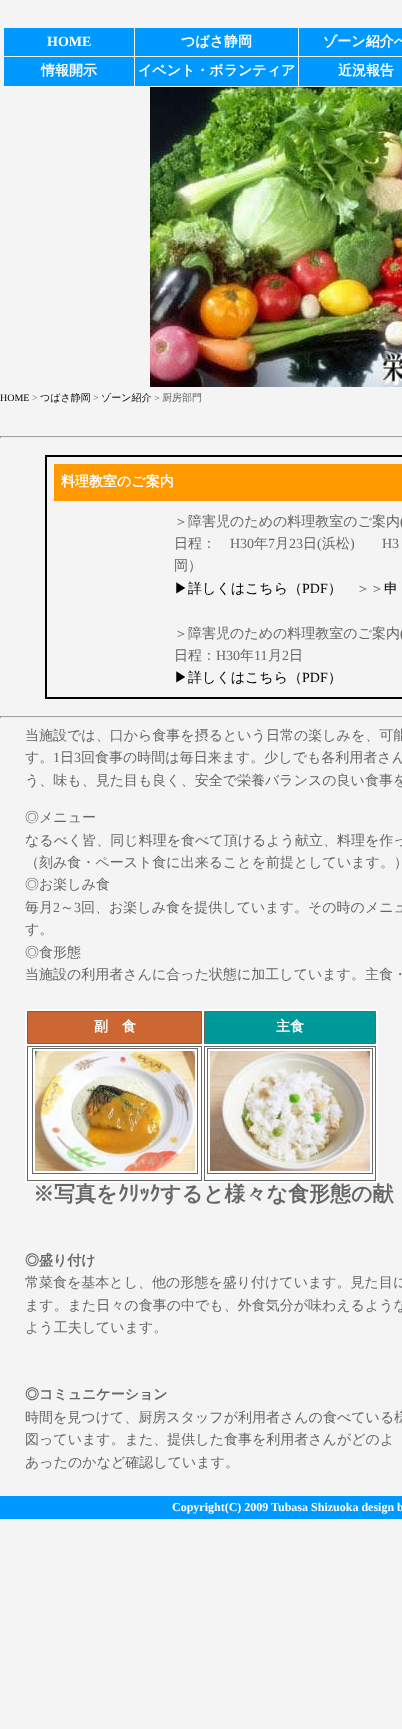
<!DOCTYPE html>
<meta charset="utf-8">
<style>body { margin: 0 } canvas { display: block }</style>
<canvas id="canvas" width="402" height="1729"></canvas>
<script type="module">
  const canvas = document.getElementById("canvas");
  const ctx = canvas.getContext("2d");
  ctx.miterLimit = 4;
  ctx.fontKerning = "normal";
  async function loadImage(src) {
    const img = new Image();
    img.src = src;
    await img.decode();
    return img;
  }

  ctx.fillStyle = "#f5f4f4";
  ctx.fillRect(0, 0, 402, 1729);
  ctx.fillStyle = "#0099ff";
  ctx.fillRect(4, 28, 130, 28);
  ctx.font = "bold 14px Liberation Serif";
  ctx.fillStyle = "#ffffff";
  ctx.fillText("HOME", 47, 46);
  ctx.fillStyle = "#0099ff";
  ctx.fillRect(135, 28, 163, 28);
  ctx.font = "bold 14px WenQuanYi Zen Hei";
  ctx.fillStyle = "#ffffff";
  ctx.fillText("つばさ静岡", 181, 46);
  ctx.fillStyle = "#0099ff";
  ctx.fillRect(299, 28, 103, 28);
  ctx.fillStyle = "#ffffff";
  ctx.fillText("ゾーン紹介へ", 323, 46);
  ctx.fillStyle = "#0099ff";
  ctx.fillRect(4, 57, 130, 29);
  ctx.fillStyle = "#ffffff";
  ctx.fillText("情報開示", 41, 75);
  ctx.fillStyle = "#0099ff";
  ctx.fillRect(135, 57, 163, 29);
  ctx.fillStyle = "#ffffff";
  ctx.fillText("イベント・ボランティア", 138, 75);
  ctx.fillStyle = "#0099ff";
  ctx.fillRect(299, 57, 103, 29);
  ctx.fillStyle = "#ffffff";
  ctx.fillText("近況報告", 338, 75);
  ctx.drawImage(await loadImage("img1.png"), 150, 87, 252, 300);
  ctx.font = "10px Liberation Serif";
  ctx.fillStyle = "#000000";
  ctx.fillText("HOME", 0, 401);
  ctx.fillStyle = "#666666";
  ctx.fillText(">", 32, 401);
  ctx.font = "500 10px WenQuanYi Zen Hei";
  ctx.fillStyle = "#000000";
  ctx.fillText("つばさ静岡", 40, 401);
  ctx.font = "10px Liberation Serif";
  ctx.fillStyle = "#666666";
  ctx.fillText(">", 93, 401);
  ctx.font = "500 10px WenQuanYi Zen Hei";
  ctx.fillStyle = "#000000";
  ctx.fillText("ゾーン紹介", 101, 401);
  ctx.fillStyle = "#666666";
  ctx.fillText("＞厨房部門", 152, 401);
  ctx.fillStyle = "#9f9f9f";
  ctx.fillRect(0, 436, 402, 1);
  ctx.fillStyle = "#eeeeee";
  ctx.fillRect(0, 437, 402, 1);
  ctx.fillStyle = "#9f9f9f";
  ctx.fillRect(0, 436, 1, 2);
  ctx.strokeStyle = "#000000";
  ctx.lineWidth = 2;
  ctx.strokeRect(46, 456, 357, 242);
  ctx.fillStyle = "#ff9900";
  ctx.fillRect(54, 464, 348, 37);
  ctx.font = "bold 14px WenQuanYi Zen Hei";
  ctx.fillStyle = "#ffffff";
  ctx.fillText("料理教室のご案内", 61, 486);
  ctx.font = "500 14px WenQuanYi Zen Hei";
  ctx.fillStyle = "#666666";
  ctx.fillText("＞障害児のための料理教室のご案内", 174, 526);
  ctx.font = "14px Liberation Serif";
  ctx.fillText("(", 400, 526);
  ctx.font = "500 14px WenQuanYi Zen Hei";
  ctx.fillText("日程：", 174, 548);
  ctx.font = "14px Liberation Serif";
  ctx.fillText("H30", 230, 548);
  ctx.font = "500 14px WenQuanYi Zen Hei";
  ctx.fillText("年", 254, 548);
  ctx.font = "14px Liberation Serif";
  ctx.fillText("7", 268, 548);
  ctx.font = "500 14px WenQuanYi Zen Hei";
  ctx.fillText("月", 275, 548);
  ctx.font = "14px Liberation Serif";
  ctx.fillText("23", 289, 548);
  ctx.font = "500 14px WenQuanYi Zen Hei";
  ctx.fillText("日", 303, 548);
  ctx.font = "14px Liberation Serif";
  ctx.fillText("(", 317, 548);
  ctx.font = "500 14px WenQuanYi Zen Hei";
  ctx.fillText("浜松", 322, 548);
  ctx.font = "14px Liberation Serif";
  ctx.fillText(")", 350, 548);
  ctx.fillText("H3", 382, 548);
  ctx.font = "500 14px WenQuanYi Zen Hei";
  ctx.fillText("岡）", 174, 570);
  ctx.fillStyle = "#000000";
  ctx.fillText("▶詳しくはこちら（", 174, 593);
  ctx.font = "14px Liberation Serif";
  ctx.fillText("PDF", 302, 593);
  ctx.font = "500 14px WenQuanYi Zen Hei";
  ctx.fillText("）", 328, 593);
  ctx.fillStyle = "#666666";
  ctx.fillText("＞＞", 356, 593);
  ctx.fillStyle = "#000000";
  ctx.fillText("申", 384, 593);
  ctx.fillStyle = "#666666";
  ctx.fillText("＞障害児のための料理教室のご案内", 174, 638);
  ctx.font = "14px Liberation Serif";
  ctx.fillText("(", 400, 638);
  ctx.font = "500 14px WenQuanYi Zen Hei";
  ctx.fillText("日程：", 174, 660);
  ctx.font = "14px Liberation Serif";
  ctx.fillText("H30", 216, 660);
  ctx.font = "500 14px WenQuanYi Zen Hei";
  ctx.fillText("年", 240, 660);
  ctx.font = "14px Liberation Serif";
  ctx.fillText("11", 254, 660);
  ctx.font = "500 14px WenQuanYi Zen Hei";
  ctx.fillText("月", 268, 660);
  ctx.font = "14px Liberation Serif";
  ctx.fillText("2", 282, 660);
  ctx.font = "500 14px WenQuanYi Zen Hei";
  ctx.fillText("日", 289, 660);
  ctx.fillStyle = "#000000";
  ctx.fillText("▶詳しくはこちら（", 174, 682);
  ctx.font = "14px Liberation Serif";
  ctx.fillText("PDF", 302, 682);
  ctx.font = "500 14px WenQuanYi Zen Hei";
  ctx.fillText("）", 328, 682);
  ctx.fillStyle = "#9f9f9f";
  ctx.fillRect(0, 716, 402, 1);
  ctx.fillStyle = "#eeeeee";
  ctx.fillRect(0, 717, 402, 1);
  ctx.fillStyle = "#9f9f9f";
  ctx.fillRect(0, 716, 1, 2);
  ctx.fillStyle = "#666666";
  ctx.fillText("当施設では、口から食事を摂るという日常の楽しみを、可能", 25, 740);
  ctx.fillText("す。", 25, 762);
  ctx.font = "14px Liberation Serif";
  ctx.fillText("1", 53, 762);
  ctx.font = "500 14px WenQuanYi Zen Hei";
  ctx.fillText("日", 60, 762);
  ctx.font = "14px Liberation Serif";
  ctx.fillText("3", 74, 762);
  ctx.font = "500 14px WenQuanYi Zen Hei";
  ctx.fillText("回食事の時間は毎日来ます。少しでも各利用者さん", 81, 762);
  ctx.fillText("う、味も、見た目も良く、安全で栄養バランスの良い食事を", 25, 785);
  ctx.fillText("◎メニュー", 25, 822);
  ctx.fillText("なるべく皆、同じ料理を食べて頂けるよう献立、料理を作っ", 25, 845);
  ctx.fillText("（刻み食・ペースト食に出来ることを前提としています。）", 25, 867);
  ctx.fillText("◎お楽しみ食", 25, 889);
  ctx.fillText("毎月", 25, 912);
  ctx.font = "14px Liberation Serif";
  ctx.fillText("2", 53, 912);
  ctx.font = "500 14px WenQuanYi Zen Hei";
  ctx.fillText("～", 60, 912);
  ctx.font = "14px Liberation Serif";
  ctx.fillText("3", 74, 912);
  ctx.font = "500 14px WenQuanYi Zen Hei";
  ctx.fillText("回、お楽しみ食を提供しています。その時のメニュ", 81, 912);
  ctx.fillText("す。", 25, 934);
  ctx.fillText("◎食形態", 25, 957);
  ctx.fillText("当施設の利用者さんに合った状態に加工しています。主食・", 25, 979);
  ctx.fillStyle = "#ffffff";
  ctx.fillRect(25, 1009, 353, 174);
  ctx.fillStyle = "#cc6633";
  ctx.beginPath();
  ctx.rect(27.5, 1011.5, 174, 32);
  ctx.fill();
  ctx.strokeStyle = "#666666";
  ctx.lineWidth = 1;
  ctx.stroke();
  ctx.font = "bold 14px WenQuanYi Zen Hei";
  ctx.fillStyle = "#ffffff";
  ctx.fillText("副　食", 94, 1031);
  ctx.fillStyle = "#009999";
  ctx.beginPath();
  ctx.rect(204.5, 1011.5, 171, 32);
  ctx.fill();
  ctx.stroke();
  ctx.fillStyle = "#ffffff";
  ctx.fillText("主食", 276, 1031);
  ctx.strokeRect(27.5, 1046.5, 174, 134);
  ctx.strokeRect(32.5, 1048.5, 165, 125);
  ctx.drawImage(await loadImage("img2.png"), 35, 1051, 160, 120);
  ctx.strokeRect(204.5, 1046.5, 171, 134);
  ctx.strokeRect(207.5, 1048.5, 165, 125);
  ctx.drawImage(await loadImage("img3.png"), 210, 1051, 160, 120);
  ctx.font = "bold 21px WenQuanYi Zen Hei";
  ctx.fillStyle = "#666666";
  ctx.fillText("※写真を", 33, 1201);
  ctx.font = "bold 21px IPAGothic";
  ctx.fillText("ｸﾘｯｸ", 118, 1201);
  ctx.font = "bold 21px WenQuanYi Zen Hei";
  ctx.fillText("すると様々な食形態の献", 160, 1201);
  ctx.font = "bold 14px WenQuanYi Zen Hei";
  ctx.fillText("◎盛り付け", 25, 1265);
  ctx.font = "500 14px WenQuanYi Zen Hei";
  ctx.fillText("常菜食を基本とし、他の形態を盛り付けています。見た目に", 25, 1287);
  ctx.fillText("ます。また日々の食事の中でも、外食気分が味わえるような", 25, 1310);
  ctx.fillText("よう工夫しています。", 25, 1332);
  ctx.font = "bold 14px WenQuanYi Zen Hei";
  ctx.fillText("◎コミュニケーション", 25, 1399);
  ctx.font = "500 14px WenQuanYi Zen Hei";
  ctx.fillText("時間を見つけて、厨房スタッフが利用者さんの食べている様", 25, 1422);
  ctx.fillText("図っています。また、提供した食事を利用者さんがどのよ", 25, 1444);
  ctx.fillText("あったのかなど確認しています。", 25, 1467);
  ctx.fillStyle = "#0099ff";
  ctx.fillRect(0, 1496, 402, 23);
  ctx.font = "bold 12px Liberation Serif";
  ctx.fillStyle = "#ffffff";
  ctx.fillText("Copyright(C) 2009 Tubasa Shizuoka design b", 172, 1511);
</script>
